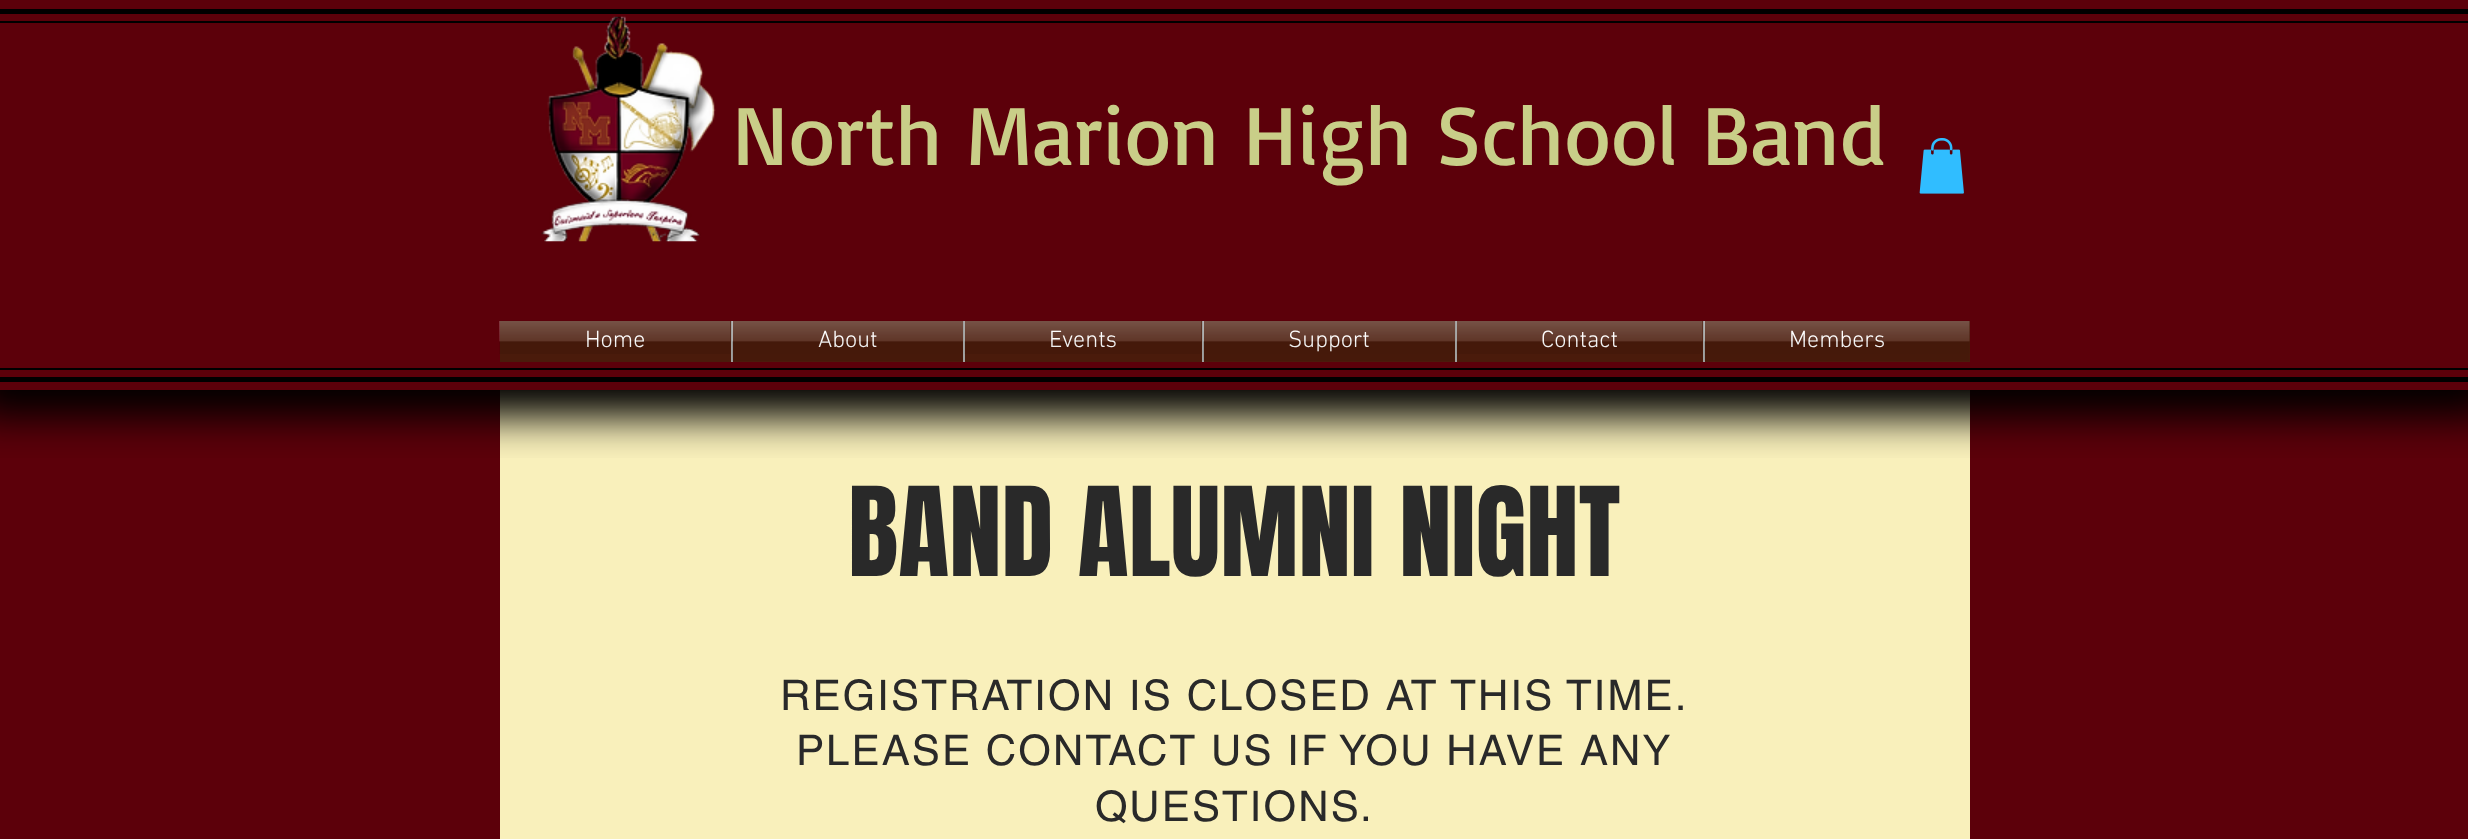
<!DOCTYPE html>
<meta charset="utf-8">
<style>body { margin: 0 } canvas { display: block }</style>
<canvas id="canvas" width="2468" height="839"></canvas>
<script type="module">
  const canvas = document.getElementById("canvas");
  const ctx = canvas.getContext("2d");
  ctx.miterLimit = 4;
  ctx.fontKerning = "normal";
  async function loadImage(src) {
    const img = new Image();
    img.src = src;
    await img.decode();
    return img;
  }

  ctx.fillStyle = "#5c000a";
  ctx.fillRect(0, 0, 2468, 839);
  ctx.fillStyle = "#f9f0bb";
  ctx.fillRect(500, 390, 1470, 449);
  ctx.save();
  ctx.beginPath();
  ctx.rect(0, 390, 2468, 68);
  ctx.clip();
  ctx.fillStyle = "#000000";
  ctx.filter = "blur(20px)";
  ctx.beginPath();
  ctx.rect(-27, -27, 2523, 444);
  ctx.fill();
  ctx.filter = "none";
  ctx.restore();
  ctx.fillStyle = "#000000";
  ctx.fillRect(0, 9, 2468, 5);
  ctx.fillRect(0, 377, 2468, 5);
  ctx.fillRect(0, 21, 2468, 2);
  ctx.fillRect(0, 368, 2468, 2);
  ctx.drawImage(await loadImage("img1.png"), 541, 16, 175, 226);
  ctx.font = "85.5px Basic";
  ctx.fillStyle = "#c9ce88";
  ctx.fillText("North Marion High School Band", 732, 165);
  ctx.drawImage(await loadImage("img2.png"), 1919, 138, 45, 56);
  ctx.drawImage(await loadImage("img3.png"), 499, 321, 1, 33);
  ctx.fillStyle = "#4a1b0b";
  ctx.fillRect(500, 321, 231, 41);
  ctx.font = "300 24px 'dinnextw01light'";
  ctx.fillStyle = "#ffffff";
  ctx.fillText("Home", 585, 347);
  ctx.drawImage(await loadImage("img4.png"), 499, 321, 232, 33);
  ctx.fillStyle = "#4a1b0b";
  ctx.fillRect(733, 321, 230, 41);
  ctx.fillStyle = "#a0a09f";
  ctx.fillRect(731, 321, 2, 41);
  ctx.fillStyle = "#ffffff";
  ctx.fillText("About", 818, 347);
  ctx.drawImage(await loadImage("img5.png"), 732, 321, 231, 40);
  ctx.fillStyle = "#4a1b0b";
  ctx.fillRect(965, 321, 237, 41);
  ctx.fillStyle = "#a0a09f";
  ctx.fillRect(963, 321, 2, 41);
  ctx.fillStyle = "#ffffff";
  ctx.fillText("Events", 1049, 347);
  ctx.drawImage(await loadImage("img6.png"), 964, 321, 238, 33);
  ctx.fillStyle = "#4a1b0b";
  ctx.fillRect(1204, 321, 251, 41);
  ctx.fillStyle = "#a0a09f";
  ctx.fillRect(1202, 321, 2, 41);
  ctx.fillStyle = "#ffffff";
  ctx.fillText("Support", 1288, 347);
  ctx.drawImage(await loadImage("img7.png"), 1203, 321, 252, 40);
  ctx.fillStyle = "#4a1b0b";
  ctx.fillRect(1457, 321, 246, 41);
  ctx.fillStyle = "#a0a09f";
  ctx.fillRect(1455, 321, 2, 41);
  ctx.fillStyle = "#ffffff";
  ctx.fillText("Contact", 1541, 347);
  ctx.drawImage(await loadImage("img8.png"), 1456, 321, 247, 33);
  ctx.fillStyle = "#4a1b0b";
  ctx.fillRect(1705, 321, 265, 41);
  ctx.fillStyle = "#a0a09f";
  ctx.fillRect(1703, 321, 2, 41);
  ctx.fillStyle = "#ffffff";
  ctx.fillText("Members", 1789, 347);
  ctx.drawImage(await loadImage("img9.png"), 1704, 321, 266, 40);
  ctx.font = "105px Anton";
  ctx.fillStyle = "#292929";
  ctx.fillText("BAND ALUMNI NIGHT", 848, 576);
  ctx.letterSpacing = "2.1px";
  ctx.font = "42px helvetica";
  ctx.fillText("REGISTRATION IS CLOSED AT THIS TIME.", 780, 710);
  ctx.fillText("PLEASE CONTACT US IF YOU HAVE ANY", 796, 765);
  ctx.fillText("QUESTIONS.", 1095, 821);
</script>
